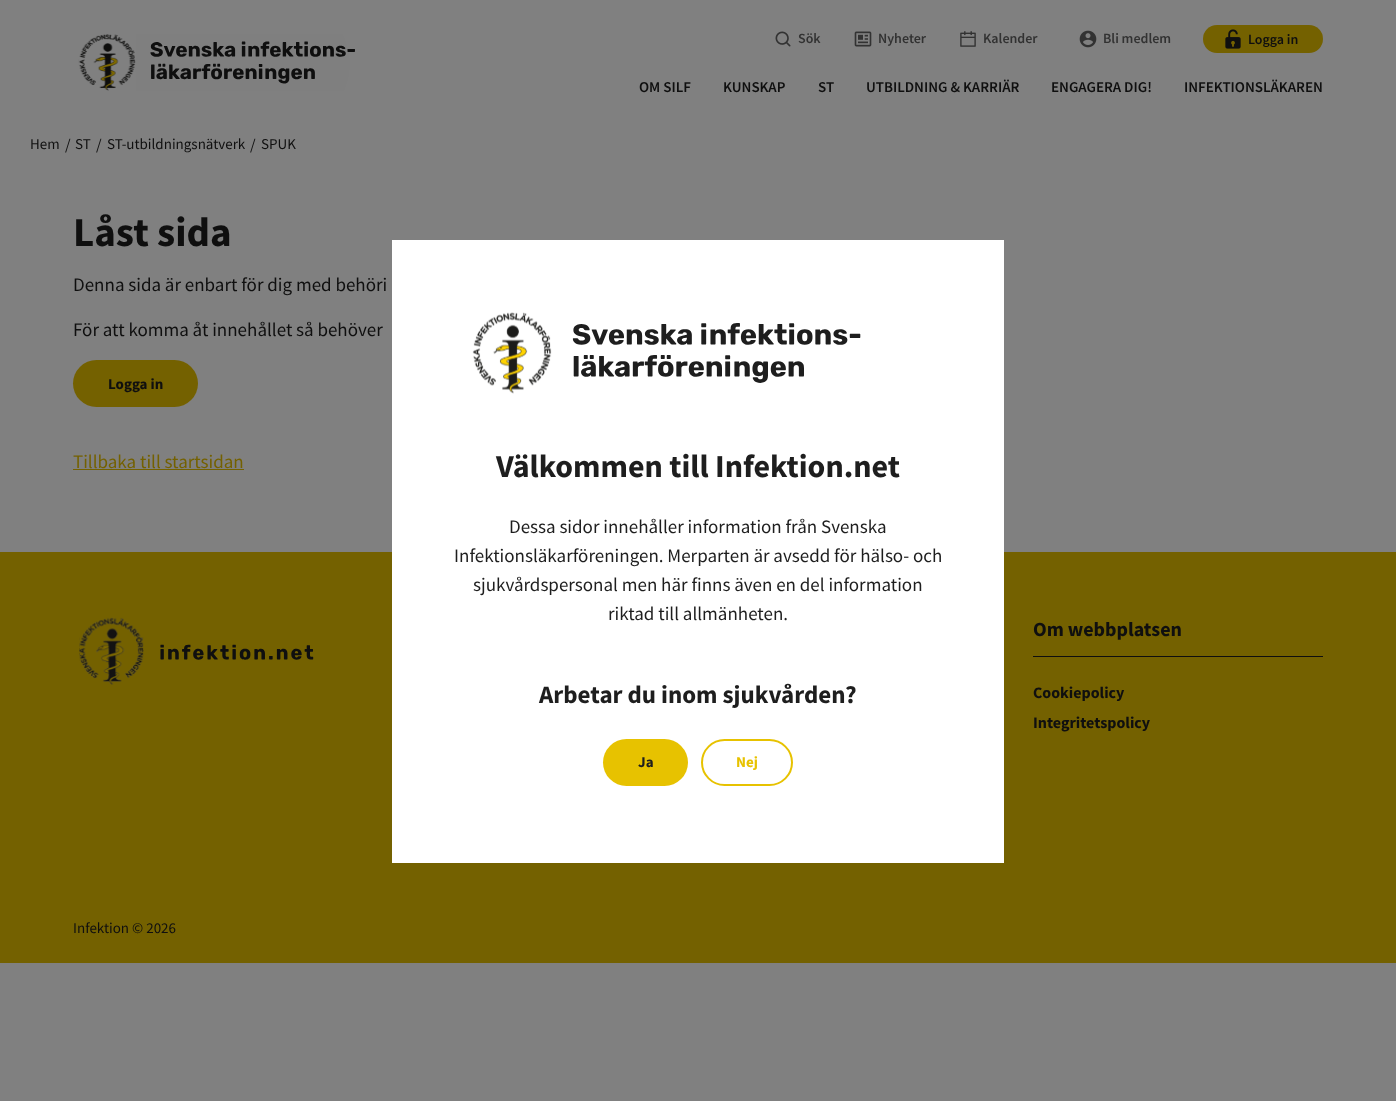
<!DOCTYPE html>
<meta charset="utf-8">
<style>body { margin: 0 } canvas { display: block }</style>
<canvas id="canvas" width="1396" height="1101"></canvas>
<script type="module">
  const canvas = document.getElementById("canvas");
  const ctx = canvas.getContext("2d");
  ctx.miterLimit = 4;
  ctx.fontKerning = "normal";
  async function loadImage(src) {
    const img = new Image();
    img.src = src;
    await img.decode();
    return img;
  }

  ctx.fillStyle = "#808080";
  ctx.fillRect(0, 0, 1396, 1101);
  ctx.drawImage(await loadImage("img1.png"), 78, 34, 277, 57);
  ctx.drawImage(await loadImage("img2.png"), 775, 31, 16, 16);
  ctx.font = "600 14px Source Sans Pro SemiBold";
  ctx.fillStyle = "#323232";
  ctx.fillText("Sök", 798, 43);
  ctx.drawImage(await loadImage("img3.png"), 854, 31, 18, 16);
  ctx.fillText("Nyheter", 878, 43);
  ctx.drawImage(await loadImage("img4.png"), 960, 31, 16, 16);
  ctx.fillText("Kalender", 983, 43);
  ctx.drawImage(await loadImage("img5.png"), 1079, 30, 18, 18);
  ctx.fillText("Bli medlem", 1103, 43);
  ctx.fillStyle = "#746100";
  ctx.beginPath();
  ctx.roundRect(1203, 25, 120, 28, 14);
  ctx.fill();
  ctx.drawImage(await loadImage("img6.png"), 1225, 29, 16, 20);
  ctx.fillStyle = "#0f0f0f";
  ctx.fillText("Logga in", 1248, 44);
  ctx.font = "600 15px Source Sans Pro SemiBold";
  ctx.fillText("OM SILF", 639, 92);
  ctx.fillText("KUNSKAP", 723, 92);
  ctx.fillText("ST", 818, 92);
  ctx.fillText("UTBILDNING & KARRIÄR", 866, 92);
  ctx.fillText("ENGAGERA DIG!", 1051, 92);
  ctx.fillText("INFEKTIONSLÄKAREN", 1184, 92);
  ctx.font = "15px Source Sans Pro";
  ctx.fillText("Hem", 30, 149);
  ctx.font = "16px Source Sans Pro";
  ctx.fillText("/", 65, 150);
  ctx.font = "15px Source Sans Pro";
  ctx.fillText("ST", 75, 149);
  ctx.font = "16px Source Sans Pro";
  ctx.fillText("/", 96, 150);
  ctx.font = "15px Source Sans Pro";
  ctx.fillText("ST-utbildningsnätverk", 107, 149);
  ctx.font = "16px Source Sans Pro";
  ctx.fillText("/", 250, 150);
  ctx.font = "15px Source Sans Pro";
  ctx.fillText("SPUK", 261, 149);
  ctx.font = "bold 41px Source Sans Pro";
  ctx.fillText("Låst sida", 73, 246);
  ctx.font = "19px Source Sans Pro";
  ctx.fillText("Denna sida är enbart för dig med behöri", 73, 291);
  ctx.fillText("För att komma åt innehållet så behöver", 73, 336);
  ctx.fillStyle = "#746100";
  ctx.beginPath();
  ctx.roundRect(73, 360, 125, 47, 23.5);
  ctx.fill();
  ctx.font = "bold 15px Source Sans Pro";
  ctx.fillStyle = "#0f0f0f";
  ctx.fillText("Logga in", 108, 389);
  ctx.font = "19px Source Sans Pro";
  ctx.fillStyle = "#746100";
  ctx.fillText("Tillbaka till startsidan", 73, 468);
  ctx.fillRect(73, 469, 171, 1);
  ctx.fillRect(0, 552, 1396, 411);
  ctx.fillStyle = "#ffffff";
  ctx.fillRect(392, 240, 612, 623);
  ctx.drawImage(await loadImage("img7.png"), 472, 312, 389, 82);
  ctx.font = "bold 32px Source Sans Pro";
  ctx.fillStyle = "#1e1e1e";
  ctx.fillText("Välkommen till Infektion.net", 496, 477);
  ctx.font = "19px Source Sans Pro";
  ctx.fillText("Dessa sidor innehåller information från Svenska", 509, 533);
  ctx.fillText("Infektionsläkarföreningen. Merparten är avsedd för hälso- och", 454, 562);
  ctx.fillText("sjukvårdspersonal men här finns även en del information", 473, 591);
  ctx.fillText("riktad till allmänheten.", 608, 620);
  ctx.font = "bold 25px Source Sans Pro";
  ctx.fillText("Arbetar du inom sjukvården?", 539, 703);
  ctx.fillStyle = "#e7c200";
  ctx.beginPath();
  ctx.roundRect(603, 739, 85, 47, 23.5);
  ctx.fill();
  ctx.font = "bold 15px Source Sans Pro";
  ctx.fillStyle = "#1e1e1e";
  ctx.fillText("Ja", 638, 767);
  ctx.beginPath();
  ctx.roundRect(702, 740, 90, 45, 22.5);
  ctx.strokeStyle = "#e7c200";
  ctx.lineWidth = 2;
  ctx.stroke();
  ctx.fillStyle = "#e7c200";
  ctx.fillText("Nej", 736, 767);
  ctx.drawImage(await loadImage("img8.png"), 79, 617, 235, 68);
  ctx.fillStyle = "#0f0f0f";
  ctx.fillRect(1033, 656, 290, 1);
  ctx.font = "bold 20px Source Sans Pro";
  ctx.fillText("Om webbplatsen", 1033, 636);
  ctx.font = "bold 16px Source Sans Pro";
  ctx.fillText("Cookiepolicy", 1033, 698);
  ctx.fillText("Integritetspolicy", 1033, 728);
  ctx.font = "15px Source Sans Pro";
  ctx.fillText("Infektion © 2026", 73, 933);
</script>
